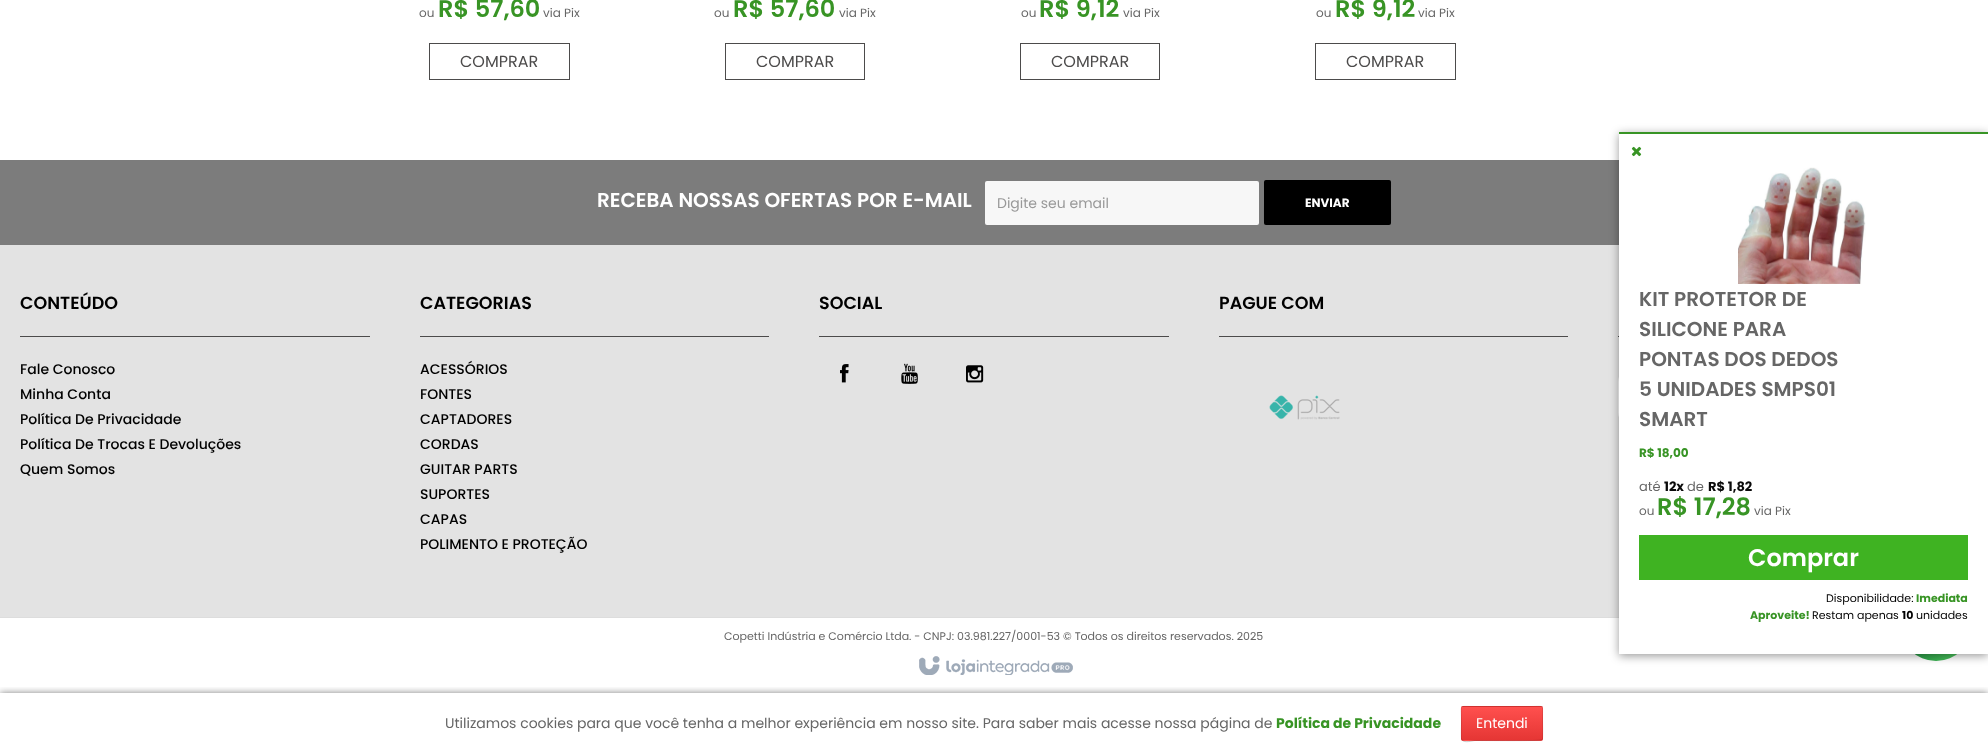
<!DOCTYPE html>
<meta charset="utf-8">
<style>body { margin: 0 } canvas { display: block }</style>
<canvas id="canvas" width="1988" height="753"></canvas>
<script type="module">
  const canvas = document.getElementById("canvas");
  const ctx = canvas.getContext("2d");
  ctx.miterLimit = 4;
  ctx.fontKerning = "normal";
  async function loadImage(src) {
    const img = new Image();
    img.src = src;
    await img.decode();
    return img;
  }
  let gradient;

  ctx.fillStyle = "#ffffff";
  ctx.fillRect(0, 0, 1988, 753);
  ctx.font = "12px Poppins";
  ctx.fillStyle = "#666666";
  ctx.fillText("ou", 419, 17);
  ctx.font = "600 24px Poppins";
  ctx.fillStyle = "#389425";
  ctx.fillText("R$ 57,60", 438, 17);
  ctx.font = "12px Poppins";
  ctx.fillStyle = "#666666";
  ctx.fillText("via Pix", 543, 17);
  ctx.strokeStyle = "#4c4b4b";
  ctx.strokeRect(429.5, 43.5, 140, 36);
  ctx.font = "16px Poppins";
  ctx.fillStyle = "#4c4b4b";
  ctx.fillText("COMPRAR", 460, 67);
  ctx.font = "12px Poppins";
  ctx.fillStyle = "#666666";
  ctx.fillText("ou", 714, 17);
  ctx.font = "600 24px Poppins";
  ctx.fillStyle = "#389425";
  ctx.fillText("R$ 57,60", 733, 17);
  ctx.font = "12px Poppins";
  ctx.fillStyle = "#666666";
  ctx.fillText("via Pix", 839, 17);
  ctx.strokeRect(725.5, 43.5, 139, 36);
  ctx.font = "16px Poppins";
  ctx.fillStyle = "#4c4b4b";
  ctx.fillText("COMPRAR", 756, 67);
  ctx.font = "12px Poppins";
  ctx.fillStyle = "#666666";
  ctx.fillText("ou", 1021, 17);
  ctx.font = "600 24px Poppins";
  ctx.fillStyle = "#389425";
  ctx.fillText("R$ 9,12", 1039, 17);
  ctx.font = "12px Poppins";
  ctx.fillStyle = "#666666";
  ctx.fillText("via Pix", 1123, 17);
  ctx.strokeRect(1020.5, 43.5, 139, 36);
  ctx.font = "16px Poppins";
  ctx.fillStyle = "#4c4b4b";
  ctx.fillText("COMPRAR", 1051, 67);
  ctx.font = "12px Poppins";
  ctx.fillStyle = "#666666";
  ctx.fillText("ou", 1316, 17);
  ctx.font = "600 24px Poppins";
  ctx.fillStyle = "#389425";
  ctx.fillText("R$ 9,12", 1335, 17);
  ctx.font = "12px Poppins";
  ctx.fillStyle = "#666666";
  ctx.fillText("via Pix", 1418, 17);
  ctx.strokeRect(1315.5, 43.5, 140, 36);
  ctx.font = "16px Poppins";
  ctx.fillStyle = "#4c4b4b";
  ctx.fillText("COMPRAR", 1346, 67);
  ctx.fillStyle = "#7c7c7c";
  ctx.fillRect(0, 160, 1619, 85);
  ctx.fillStyle = "#e3e3e3";
  ctx.fillRect(0, 245, 1619, 372);
  ctx.fillStyle = "#4c4b4b";
  ctx.fillRect(1618, 336, 1, 1);
  ctx.fillStyle = "#ffffff";
  ctx.beginPath();
  ctx.roundRect(1618, 367, 205, 60, 15);
  ctx.fill();
  ctx.fillStyle = "#dddddd";
  ctx.fillRect(0, 617, 1619, 1);
  gradient = ctx.createLinearGradient(1900, 625, 1972, 625);
  gradient.addColorStop(0, "#209142");
  gradient.addColorStop(1, "#56d263");
  ctx.fillStyle = gradient;
  ctx.beginPath();
  ctx.arc(1936, 625, 36, 0, Math.PI * 2);
  ctx.fill();
  ctx.fillStyle = "rgba(0, 0, 0, 0.4)";
  ctx.filter = "blur(5px)";
  ctx.beginPath();
  ctx.rect(1619, 134, 369, 522);
  ctx.fill();
  ctx.filter = "none";
  ctx.fillStyle = "#ffffff";
  ctx.fillRect(1619, 134, 369, 520);
  ctx.fillStyle = "#389425";
  ctx.fillRect(1619, 132, 369, 2);
  ctx.drawImage(await loadImage("img1.png"), 1631, 146, 11, 11);
  ctx.drawImage(await loadImage("img2.png"), 1738, 167, 128, 117);
  ctx.font = "600 20px Poppins";
  ctx.fillStyle = "#666666";
  ctx.fillText("KIT PROTETOR DE", 1639, 306);
  ctx.fillText("SILICONE PARA", 1639, 336);
  ctx.fillText("PONTAS DOS DEDOS", 1639, 366);
  ctx.fillText("5 UNIDADES SMPS01", 1639, 396);
  ctx.fillText("SMART", 1639, 426);
  ctx.font = "bold 12px Poppins";
  ctx.fillStyle = "#389425";
  ctx.fillText("R$ 18,00", 1639, 457);
  ctx.font = "13px Poppins";
  ctx.fillStyle = "#666666";
  ctx.fillText("até", 1639, 491);
  ctx.font = "bold 13px Poppins";
  ctx.fillStyle = "#0a0a0a";
  ctx.fillText("12x", 1664, 491);
  ctx.font = "13px Poppins";
  ctx.fillStyle = "#666666";
  ctx.fillText("de", 1687, 491);
  ctx.font = "bold 13px Poppins";
  ctx.fillStyle = "#0a0a0a";
  ctx.fillText("R$ 1,82", 1708, 491);
  ctx.font = "12px Poppins";
  ctx.fillStyle = "#666666";
  ctx.fillText("ou", 1639, 515);
  ctx.font = "600 24px Poppins";
  ctx.fillStyle = "#389425";
  ctx.fillText("R$ 17,28", 1657, 515);
  ctx.font = "12px Poppins";
  ctx.fillStyle = "#666666";
  ctx.fillText("via Pix", 1754, 515);
  ctx.fillStyle = "#3fb322";
  ctx.fillRect(1639, 535, 329, 45);
  ctx.font = "600 24px Poppins";
  ctx.fillStyle = "#ffffff";
  ctx.fillText("Comprar", 1748, 566);
  ctx.font = "11px Poppins";
  ctx.fillStyle = "#000000";
  ctx.fillText("Disponibilidade:", 1826, 602);
  ctx.font = "bold 11px Poppins";
  ctx.fillStyle = "#389425";
  ctx.fillText("Imediata", 1916, 602);
  ctx.fillText("Aproveite!", 1750, 619);
  ctx.font = "11px Poppins";
  ctx.fillStyle = "#000000";
  ctx.fillText("Restam apenas", 1812, 619);
  ctx.font = "bold 11px Poppins";
  ctx.fillText("10", 1902, 619);
  ctx.font = "11px Poppins";
  ctx.fillText("unidades", 1916, 619);
  ctx.font = "600 20px Poppins";
  ctx.fillStyle = "#ffffff";
  ctx.fillText("RECEBA NOSSAS OFERTAS POR E-MAIL", 597, 207);
  ctx.fillStyle = "#f7f7f7";
  ctx.beginPath();
  ctx.roundRect(985, 181, 274, 44, 2);
  ctx.fill();
  ctx.font = "14px Poppins";
  ctx.fillStyle = "#999999";
  ctx.fillText("Digite seu email", 997, 208);
  ctx.fillStyle = "#000000";
  ctx.beginPath();
  ctx.roundRect(1264, 180, 127, 45, 2);
  ctx.fill();
  ctx.beginPath();
  ctx.moveTo(1265, 224);
  ctx.bezierCurveTo(1263.5, 222.5, 1264.5, 205.5, 1264.5, 202.5);
  ctx.lineTo(1264.5, 189);
  ctx.bezierCurveTo(1264.5, 186, 1263.5, 180.5, 1266, 180.5);
  ctx.lineTo(1389, 180.5);
  ctx.bezierCurveTo(1391.5, 180.5, 1390.5, 186, 1390.5, 189);
  ctx.lineTo(1390.5, 202.5);
  ctx.bezierCurveTo(1390.5, 205.5, 1391.5, 222.5, 1390, 224);
  ctx.strokeStyle = "rgba(0, 0, 0, 0.1)";
  ctx.stroke();
  ctx.font = "bold 12px Poppins";
  ctx.fillStyle = "#ffffff";
  ctx.fillText("ENVIAR", 1305, 207);
  ctx.fillStyle = "#4c4b4b";
  ctx.fillRect(20, 336, 350, 1);
  ctx.font = "600 17.5px Poppins";
  ctx.fillStyle = "#000000";
  ctx.fillText("CONTEÚDO", 20, 309);
  ctx.font = "500 14px Poppins";
  ctx.fillText("Fale Conosco", 20, 374);
  ctx.fillText("Minha Conta", 20, 399);
  ctx.fillText("Política De Privacidade", 20, 424);
  ctx.fillText("Política De Trocas E Devoluções", 20, 449);
  ctx.fillText("Quem Somos", 20, 474);
  ctx.fillStyle = "#4c4b4b";
  ctx.fillRect(420, 336, 349, 1);
  ctx.font = "600 17.5px Poppins";
  ctx.fillStyle = "#000000";
  ctx.fillText("CATEGORIAS", 420, 309);
  ctx.font = "500 14px Poppins";
  ctx.fillText("ACESSÓRIOS", 420, 374);
  ctx.fillText("FONTES", 420, 399);
  ctx.fillText("CAPTADORES", 420, 424);
  ctx.fillText("CORDAS", 420, 449);
  ctx.fillText("GUITAR PARTS", 420, 474);
  ctx.fillText("SUPORTES", 420, 499);
  ctx.fillText("CAPAS", 420, 524);
  ctx.fillText("POLIMENTO E PROTEÇÃO", 420, 549);
  ctx.fillStyle = "#4c4b4b";
  ctx.fillRect(819, 336, 350, 1);
  ctx.font = "600 17.5px Poppins";
  ctx.fillStyle = "#000000";
  ctx.fillText("SOCIAL", 819, 309);
  ctx.drawImage(await loadImage("img3.png"), 840, 364, 9, 19);
  ctx.drawImage(await loadImage("img4.png"), 901, 363, 17, 21);
  ctx.drawImage(await loadImage("img5.png"), 966, 365, 18, 18);
  ctx.fillStyle = "#4c4b4b";
  ctx.fillRect(1219, 336, 349, 1);
  ctx.fillStyle = "#000000";
  ctx.fillText("PAGUE COM", 1219, 309);
  ctx.drawImage(await loadImage("img6.png"), 1269, 395, 71, 25);
  ctx.font = "11px Poppins";
  ctx.fillStyle = "#666666";
  ctx.fillText("Copetti Indústria e Comércio Ltda. - CNPJ: 03.981.227/0001-53 © Todos os direitos reservados. 2025", 724, 640);
  ctx.drawImage(await loadImage("img7.png"), 919, 656, 154, 19);
  ctx.save();
  ctx.beginPath();
  ctx.rect(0, 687, 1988, 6);
  ctx.clip();
  ctx.fillStyle = "rgba(0, 0, 0, 0.5)";
  ctx.filter = "blur(3.5px)";
  ctx.beginPath();
  ctx.rect(0, 693, 1988, 60);
  ctx.fill();
  ctx.filter = "none";
  ctx.restore();
  ctx.font = "14px Poppins";
  ctx.fillText("Utilizamos cookies para que você tenha a melhor experiência em nosso site. Para saber mais acesse nossa página de", 445, 728);
  ctx.font = "bold 14px Poppins";
  ctx.fillStyle = "#389425";
  ctx.fillText("Política de Privacidade", 1276, 728);
  ctx.fillStyle = "#ff3c3a";
  ctx.beginPath();
  ctx.roundRect(1461, 706, 82, 35, 2);
  ctx.fill();
  gradient = ctx.createLinearGradient(1502, 674, 1502, 707);
  gradient.addColorStop(0, "rgba(255, 255, 255, 0.1)");
  gradient.addColorStop(1, "rgba(0, 0, 0, 0.1)");
  ctx.fillStyle = gradient;
  ctx.fillRect(1461, 706, 82, 1);
  gradient = ctx.createLinearGradient(1502, 707, 1502, 740);
  gradient.addColorStop(0, "rgba(255, 255, 255, 0.1)");
  gradient.addColorStop(1, "rgba(0, 0, 0, 0.1)");
  ctx.fillStyle = gradient;
  ctx.fillRect(1461, 707, 82, 33);
  gradient = ctx.createLinearGradient(1502, 740, 1502, 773);
  gradient.addColorStop(0, "rgba(255, 255, 255, 0.1)");
  gradient.addColorStop(1, "rgba(0, 0, 0, 0.1)");
  ctx.fillStyle = gradient;
  ctx.fillRect(1461, 740, 82, 1);
  ctx.beginPath();
  ctx.moveTo(1542, 740);
  ctx.bezierCurveTo(1541, 741, 1482.5, 740.5, 1476, 740.5);
  ctx.bezierCurveTo(1471.5, 740.5, 1465.5, 743.5, 1462, 740);
  ctx.strokeStyle = "rgba(0, 0, 0, 0.2)";
  ctx.stroke();
  ctx.beginPath();
  ctx.moveTo(1462, 740);
  ctx.bezierCurveTo(1460.5, 738.5, 1461.5, 726, 1461.5, 723.5);
  ctx.bezierCurveTo(1461.5, 703, 1457, 706.5, 1476, 706.5);
  ctx.lineTo(1528, 706.5);
  ctx.bezierCurveTo(1545, 706.5, 1542.5, 703, 1542.5, 718.5);
  ctx.bezierCurveTo(1542.5, 721, 1543.5, 739, 1542, 740);
  ctx.strokeStyle = "rgba(0, 0, 0, 0.1)";
  ctx.stroke();
  ctx.font = "14px Poppins";
  ctx.fillStyle = "#ffffff";
  ctx.fillText("Entendi", 1476, 728);
</script>
